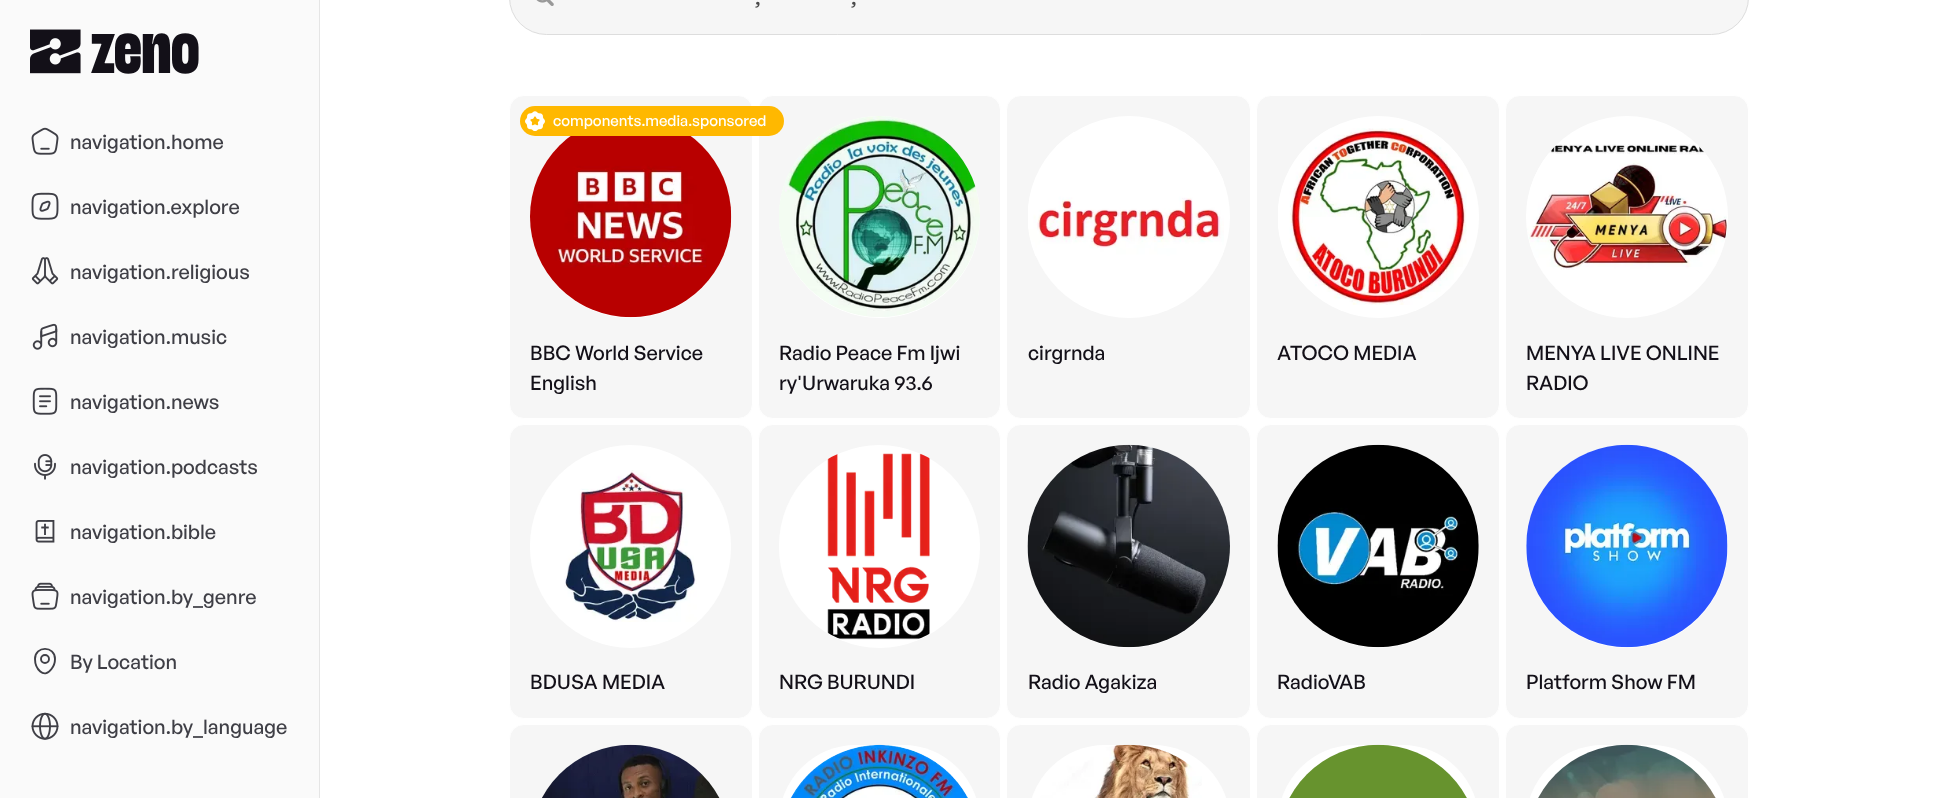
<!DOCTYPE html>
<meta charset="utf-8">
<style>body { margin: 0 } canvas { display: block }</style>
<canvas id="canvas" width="1937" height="798"></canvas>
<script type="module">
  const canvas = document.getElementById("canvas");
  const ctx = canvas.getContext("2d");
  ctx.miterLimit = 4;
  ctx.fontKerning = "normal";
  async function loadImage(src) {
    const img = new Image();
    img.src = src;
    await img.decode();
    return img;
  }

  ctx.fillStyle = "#ffffff";
  ctx.fillRect(0, 0, 1937, 798);
  ctx.fillStyle = "#e5e5e5";
  ctx.fillRect(319, 0, 1, 798);
  ctx.fillStyle = "#fafafa";
  ctx.fillRect(0, 0, 319, 798);
  ctx.drawImage(await loadImage("img1.png"), 30, 29, 51, 45);
  ctx.font = "75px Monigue";
  ctx.fillStyle = "#131018";
  ctx.fillText("zeno", 91, 73);
  ctx.drawImage(await loadImage("img2.png"), 31, 127, 28, 28);
  ctx.font = "500 20px General Sans";
  ctx.fillStyle = "#3f3f46";
  ctx.fillText("navigation.home", 70, 149);
  ctx.drawImage(await loadImage("img3.png"), 31, 192, 28, 28);
  ctx.fillText("navigation.explore", 70, 214);
  ctx.drawImage(await loadImage("img4.png"), 31, 257, 28, 28);
  ctx.fillText("navigation.religious", 70, 279);
  ctx.drawImage(await loadImage("img5.png"), 32, 323, 26, 27);
  ctx.fillText("navigation.music", 70, 344);
  ctx.drawImage(await loadImage("img6.png"), 32, 387, 26, 28);
  ctx.fillText("navigation.news", 70, 409);
  ctx.drawImage(await loadImage("img7.png"), 34, 454, 22, 26);
  ctx.fillText("navigation.podcasts", 70, 474);
  ctx.drawImage(await loadImage("img8.png"), 35, 520, 20, 23);
  ctx.fillText("navigation.bible", 70, 539);
  ctx.drawImage(await loadImage("img9.png"), 31, 582, 28, 28);
  ctx.fillText("navigation.by_genre", 70, 604);
  ctx.beginPath();
  ctx.moveTo(35, 659);
  ctx.bezierCurveTo(35, 645.5, 55, 645.5, 55, 659);
  ctx.bezierCurveTo(55, 662.5, 53.5, 666.5, 51.5, 669);
  ctx.bezierCurveTo(43.5, 680, 35, 668, 35, 659);
  ctx.closePath();
  ctx.strokeStyle = "#3f3f46";
  ctx.lineWidth = 1.9;
  ctx.stroke();
  ctx.beginPath();
  ctx.arc(45, 659, 4, 0, Math.PI * 2);
  ctx.stroke();
  ctx.fillText("By Location", 70, 669);
  ctx.drawImage(await loadImage("img10.png"), 31, 712, 28, 28);
  ctx.fillText("navigation.by_language", 70, 734);
  ctx.fillStyle = "#f6f6f6";
  ctx.beginPath();
  ctx.roundRect(509.5, -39.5, 1239, 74, 38);
  ctx.fill();
  ctx.strokeStyle = "#dddddd";
  ctx.lineWidth = 1;
  ctx.stroke();
  ctx.drawImage(await loadImage("img11.png"), 536, 0, 18, 6);
  ctx.font = "500 22px General Sans";
  ctx.fillStyle = "#4a4a4a";
  ctx.fillText(",", 755, 5);
  ctx.fillText(",", 851, 5);
  ctx.fillStyle = "#f6f6f6";
  ctx.beginPath();
  ctx.roundRect(509.5, 95.5, 243, 323, 14.5);
  ctx.fill();
  ctx.strokeStyle = "#ffffff";
  ctx.stroke();
  ctx.fillStyle = "#ffffff";
  ctx.beginPath();
  ctx.roundRect(530, 116, 201, 202, 100.5);
  ctx.fill();
  ctx.fillStyle = "#f6f6f6";
  ctx.beginPath();
  ctx.roundRect(758.5, 95.5, 242, 323, 14.5);
  ctx.fill();
  ctx.stroke();
  ctx.fillStyle = "#ffffff";
  ctx.beginPath();
  ctx.roundRect(779, 116, 201, 202, 100.5);
  ctx.fill();
  ctx.drawImage(await loadImage("img14.png"), 779, 116, 201, 201);
  ctx.fillStyle = "#ffb800";
  ctx.beginPath();
  ctx.roundRect(520, 106, 264, 30, 15);
  ctx.fill();
  ctx.drawImage(await loadImage("img12.png"), 525, 111, 20, 20);
  ctx.font = "500 15px General Sans";
  ctx.fillStyle = "#ffffff";
  ctx.fillText("components.media.sponsored", 553, 126);
  ctx.drawImage(await loadImage("img13.png"), 530, 136, 202, 182);
  ctx.font = "500 20px General Sans";
  ctx.fillStyle = "#131018";
  ctx.fillText("BBC World Service", 530, 360);
  ctx.fillText("English", 530, 390);
  ctx.fillText("Radio Peace Fm Ijwi", 779, 360);
  ctx.fillText("ry'Urwaruka 93.6", 779, 390);
  ctx.fillStyle = "#f6f6f6";
  ctx.beginPath();
  ctx.roundRect(1006.5, 95.5, 244, 323, 14.5);
  ctx.fill();
  ctx.stroke();
  ctx.fillStyle = "#ffffff";
  ctx.beginPath();
  ctx.arc(1129, 217, 101, 0, Math.PI * 2);
  ctx.fill();
  ctx.drawImage(await loadImage("img15.png"), 1028, 132, 196, 124);
  ctx.fillStyle = "#131018";
  ctx.fillText("cirgrnda", 1028, 360);
  ctx.fillStyle = "#f6f6f6";
  ctx.beginPath();
  ctx.roundRect(1256.5, 95.5, 243, 323, 14.5);
  ctx.fill();
  ctx.stroke();
  ctx.fillStyle = "#ffffff";
  ctx.beginPath();
  ctx.roundRect(1278, 116, 201, 202, 100.5);
  ctx.fill();
  ctx.drawImage(await loadImage("img16.png"), 1278, 128, 189, 177);
  ctx.fillStyle = "#131018";
  ctx.fillText("ATOCO MEDIA", 1277, 360);
  ctx.fillStyle = "#f6f6f6";
  ctx.beginPath();
  ctx.roundRect(1505.5, 95.5, 243, 323, 14.5);
  ctx.fill();
  ctx.stroke();
  ctx.fillStyle = "#ffffff";
  ctx.beginPath();
  ctx.arc(1627, 217, 101, 0, Math.PI * 2);
  ctx.fill();
  ctx.drawImage(await loadImage("img17.png"), 1527, 144, 200, 126);
  ctx.fillStyle = "#131018";
  ctx.fillText("MENYA LIVE ONLINE", 1526, 360);
  ctx.fillText("RADIO", 1526, 390);
  ctx.fillStyle = "#f6f6f6";
  ctx.beginPath();
  ctx.roundRect(509.5, 424.5, 243, 294, 14.5);
  ctx.fill();
  ctx.stroke();
  ctx.fillStyle = "#ffffff";
  ctx.beginPath();
  ctx.roundRect(530, 445, 201, 203, 100.5);
  ctx.fill();
  ctx.drawImage(await loadImage("img18.png"), 564, 470, 133, 152);
  ctx.fillStyle = "#131018";
  ctx.fillText("BDUSA MEDIA", 530, 689);
  ctx.fillStyle = "#f6f6f6";
  ctx.beginPath();
  ctx.roundRect(758.5, 424.5, 242, 294, 14.5);
  ctx.fill();
  ctx.stroke();
  ctx.fillStyle = "#ffffff";
  ctx.beginPath();
  ctx.roundRect(779, 445, 201, 203, 100.5);
  ctx.fill();
  ctx.drawImage(await loadImage("img19.png"), 827, 453, 103, 187);
  ctx.fillStyle = "#131018";
  ctx.fillText("NRG BURUNDI", 779, 689);
  ctx.fillStyle = "#f6f6f6";
  ctx.beginPath();
  ctx.roundRect(1006.5, 424.5, 244, 294, 14.5);
  ctx.fill();
  ctx.stroke();
  ctx.fillStyle = "#ffffff";
  ctx.beginPath();
  ctx.roundRect(1028, 445, 202, 203, 101);
  ctx.fill();
  ctx.drawImage(await loadImage("img20.png"), 1027, 444, 203, 204);
  ctx.fillStyle = "#131018";
  ctx.fillText("Radio Agakiza", 1028, 689);
  ctx.fillStyle = "#f6f6f6";
  ctx.beginPath();
  ctx.roundRect(1256.5, 424.5, 243, 294, 14.5);
  ctx.fill();
  ctx.stroke();
  ctx.fillStyle = "#ffffff";
  ctx.beginPath();
  ctx.roundRect(1278, 445, 201, 203, 100.5);
  ctx.fill();
  ctx.drawImage(await loadImage("img21.png"), 1277, 444, 202, 204);
  ctx.fillStyle = "#131018";
  ctx.fillText("RadioVAB", 1277, 689);
  ctx.fillStyle = "#f6f6f6";
  ctx.beginPath();
  ctx.roundRect(1505.5, 424.5, 243, 294, 14.5);
  ctx.fill();
  ctx.stroke();
  ctx.fillStyle = "#ffffff";
  ctx.beginPath();
  ctx.roundRect(1526, 445, 202, 203, 101);
  ctx.fill();
  ctx.drawImage(await loadImage("img22.png"), 1526, 444, 202, 204);
  ctx.fillStyle = "#131018";
  ctx.fillText("Platform Show FM", 1526, 689);
  ctx.fillStyle = "#f6f6f6";
  ctx.beginPath();
  ctx.roundRect(509.5, 724.5, 243, 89, 14.5);
  ctx.fill();
  ctx.stroke();
  ctx.drawImage(await loadImage("img23.png"), 542, 744, 178, 54);
  ctx.beginPath();
  ctx.roundRect(758.5, 724.5, 242, 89, 14.5);
  ctx.fill();
  ctx.stroke();
  ctx.fillStyle = "#ffffff";
  ctx.beginPath();
  ctx.roundRect(779, 745, 201, 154, 100.5);
  ctx.fill();
  ctx.drawImage(await loadImage("img24.png"), 790, 744, 178, 54);
  ctx.fillStyle = "#f6f6f6";
  ctx.beginPath();
  ctx.roundRect(1006.5, 724.5, 244, 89, 14.5);
  ctx.fill();
  ctx.stroke();
  ctx.fillStyle = "#ffffff";
  ctx.beginPath();
  ctx.roundRect(1028, 745, 202, 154, 100.5);
  ctx.fill();
  ctx.drawImage(await loadImage("img25.png"), 1040, 744, 162, 54);
  ctx.fillStyle = "#f6f6f6";
  ctx.beginPath();
  ctx.roundRect(1256.5, 724.5, 243, 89, 14.5);
  ctx.fill();
  ctx.stroke();
  ctx.fillStyle = "#ffffff";
  ctx.beginPath();
  ctx.roundRect(1278, 745, 201, 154, 100.5);
  ctx.fill();
  ctx.drawImage(await loadImage("img26.png"), 1289, 744, 178, 54);
  ctx.fillStyle = "#f6f6f6";
  ctx.beginPath();
  ctx.roundRect(1505.5, 724.5, 243, 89, 14.5);
  ctx.fill();
  ctx.stroke();
  ctx.fillStyle = "#ffffff";
  ctx.beginPath();
  ctx.roundRect(1526, 745, 202, 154, 100.5);
  ctx.fill();
  ctx.drawImage(await loadImage("img27.png"), 1538, 744, 178, 54);
</script>
